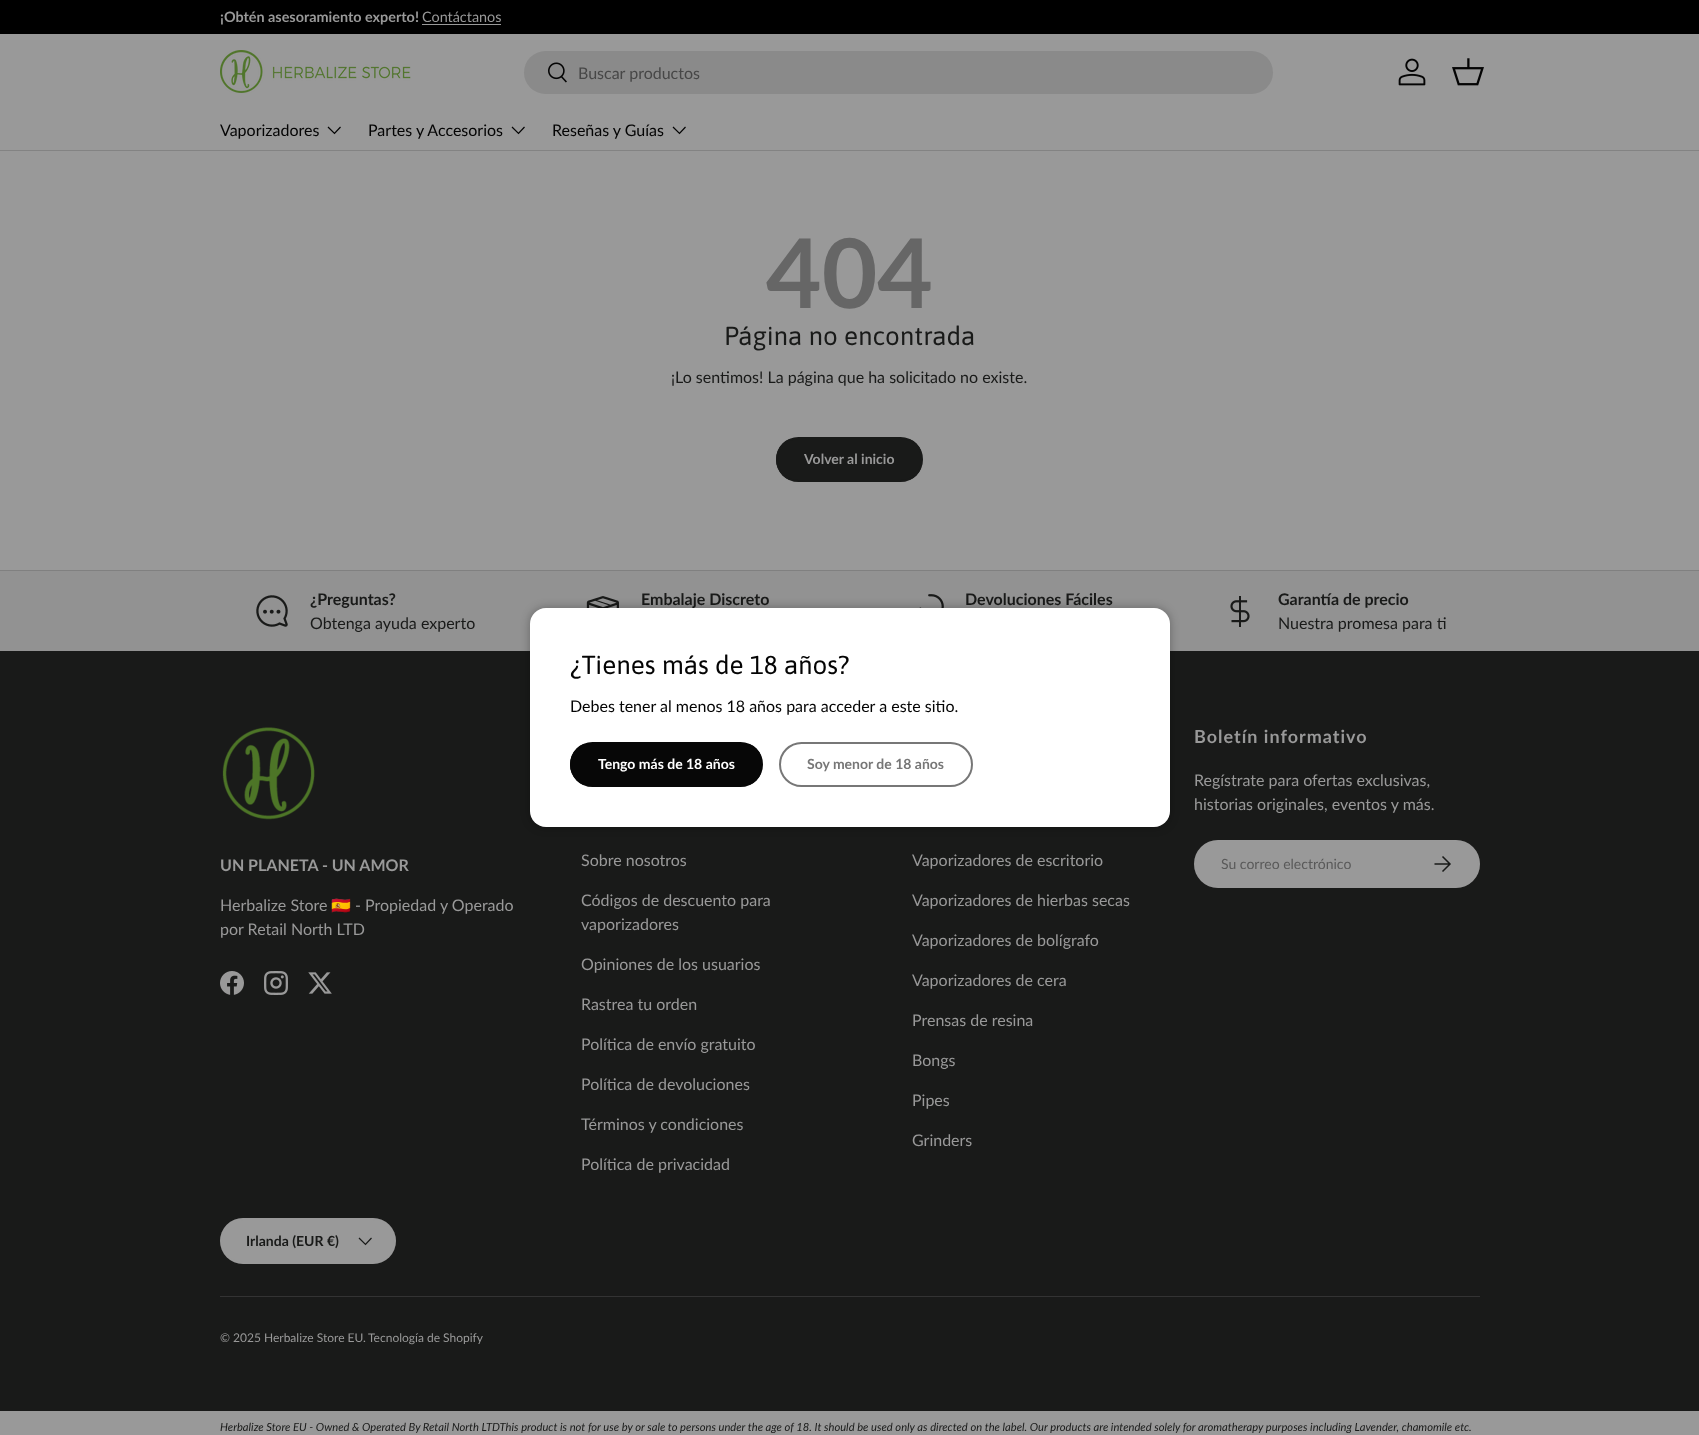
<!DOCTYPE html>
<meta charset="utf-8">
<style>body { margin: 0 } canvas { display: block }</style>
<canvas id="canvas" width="1699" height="1435"></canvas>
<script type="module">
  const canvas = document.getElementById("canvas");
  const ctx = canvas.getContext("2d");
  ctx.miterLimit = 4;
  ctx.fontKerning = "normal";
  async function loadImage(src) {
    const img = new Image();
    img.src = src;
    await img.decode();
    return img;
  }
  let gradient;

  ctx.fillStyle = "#999999";
  ctx.fillRect(0, 0, 1699, 1435);
  ctx.fillStyle = "#000000";
  ctx.fillRect(0, 0, 1699, 34);
  ctx.font = "bold 14.4px Lato";
  ctx.fillStyle = "#999999";
  ctx.fillText("¡Obtén asesoramiento experto!", 220, 22);
  ctx.font = "14.4px Lato";
  ctx.fillText("Contáctanos", 422, 22);
  ctx.fillRect(422, 24, 79, 1);
  ctx.fillStyle = "#838383";
  ctx.fillRect(0, 150, 1699, 1);
  ctx.drawImage(await loadImage("img1.png"), 220, 50, 191, 43);
  ctx.fillStyle = "#8a8a8a";
  ctx.beginPath();
  ctx.roundRect(524, 51, 749, 43, 21.5);
  ctx.fill();
  ctx.drawImage(await loadImage("img2.png"), 548, 62, 19, 21);
  ctx.font = "16px Lato";
  ctx.fillStyle = "#474747";
  ctx.fillText("Buscar productos", 578, 79);
  ctx.drawImage(await loadImage("img3.png"), 1398, 58, 28, 28);
  ctx.drawImage(await loadImage("img4.png"), 1452, 58, 32, 28);
  ctx.fillStyle = "#040404";
  ctx.fillText("Vaporizadores", 220, 136);
  ctx.beginPath();
  ctx.moveTo(340.5, 127);
  ctx.lineTo(334.5, 133.5);
  ctx.lineTo(328, 127);
  ctx.strokeStyle = "#040404";
  ctx.lineWidth = 1.2;
  ctx.stroke();
  ctx.fillText("Partes y Accesorios", 368, 136);
  ctx.beginPath();
  ctx.moveTo(524.5, 127);
  ctx.lineTo(518.5, 133.5);
  ctx.lineTo(512, 127);
  ctx.stroke();
  ctx.fillText("Reseñas y Guías", 552, 136);
  ctx.beginPath();
  ctx.moveTo(685.5, 127);
  ctx.lineTo(679.5, 133.5);
  ctx.lineTo(673, 127);
  ctx.stroke();
  ctx.font = "bold 96px Lato";
  ctx.fillStyle = "#666666";
  ctx.fillText("404", 766, 308);
  ctx.font = "26px Asap";
  ctx.fillStyle = "#191a19";
  ctx.fillText("Página no encontrada", 724, 345);
  ctx.font = "16px Lato";
  ctx.fillText("¡Lo sentimos! La página que ha solicitado no existe.", 671, 383);
  ctx.save();
  ctx.beginPath();
  ctx.roundRect(776, 437, 147, 45, 22.5);
  ctx.clip();
  gradient = ctx.createLinearGradient(500, 408, 913, 511);
  gradient.addColorStop(0.6, "#313231");
  gradient.addColorStop(0.6, "#191a19");
  gradient.addColorStop(1, "#191a19");
  ctx.fillStyle = gradient;
  ctx.fillRect(776, 439, 145, 41);
  ctx.restore();
  ctx.beginPath();
  ctx.roundRect(777, 438, 145, 43, 21.5);
  ctx.strokeStyle = "#191a19";
  ctx.lineWidth = 2;
  ctx.stroke();
  ctx.font = "bold 14px Lato";
  ctx.fillStyle = "#999999";
  ctx.fillText("Volver al inicio", 804, 464);
  ctx.fillStyle = "#929292";
  ctx.fillRect(0, 571, 1699, 80);
  ctx.fillStyle = "#808080";
  ctx.fillRect(0, 570, 1699, 1);
  ctx.drawImage(await loadImage("img5.png"), 256, 595, 32, 32);
  ctx.font = "bold 16px Lato";
  ctx.fillStyle = "#191a19";
  ctx.fillText("¿Preguntas?", 310, 605);
  ctx.font = "16px Lato";
  ctx.fillText("Obtenga ayuda experto", 310, 629);
  ctx.drawImage(await loadImage("img6.png"), 586, 596, 33, 12);
  ctx.font = "bold 16px Lato";
  ctx.fillText("Embalaje Discreto", 641, 605);
  ctx.drawImage(await loadImage("img7.png"), 919, 594, 25, 14);
  ctx.fillText("Devoluciones Fáciles", 965, 605);
  ctx.drawImage(await loadImage("img8.png"), 1230, 596, 20, 31);
  ctx.fillText("Garantía de precio", 1278, 605);
  ctx.font = "16px Lato";
  ctx.fillText("Nuestra promesa para ti", 1278, 629);
  ctx.fillRect(0, 651, 1699, 760);
  ctx.fillStyle = "rgba(0, 0, 0, 0.3)";
  ctx.filter = "blur(5px)";
  ctx.beginPath();
  ctx.roundRect(530, 608, 640, 219, 16);
  ctx.fill();
  ctx.filter = "none";
  ctx.fillStyle = "#ffffff";
  ctx.beginPath();
  ctx.roundRect(530, 608, 640, 219, 16);
  ctx.fill();
  ctx.font = "26px Asap";
  ctx.fillStyle = "#040404";
  ctx.fillText("¿Tienes más de 18 años?", 570, 674);
  ctx.font = "16px Lato";
  ctx.fillText("Debes tener al menos 18 años para acceder a este sitio.", 570, 712);
  ctx.save();
  ctx.beginPath();
  ctx.roundRect(570, 742, 193, 45, 22.5);
  ctx.clip();
  gradient = ctx.createLinearGradient(206, 697, 749, 832);
  gradient.addColorStop(0.6, "#343434");
  gradient.addColorStop(0.6, "#070707");
  gradient.addColorStop(1, "#070707");
  ctx.fillStyle = gradient;
  ctx.fillRect(570, 744, 191, 41);
  ctx.restore();
  ctx.beginPath();
  ctx.roundRect(571, 743, 191, 43, 21.5);
  ctx.strokeStyle = "#070707";
  ctx.stroke();
  ctx.font = "bold 14px Lato";
  ctx.fillStyle = "#ffffff";
  ctx.fillText("Tengo más de 18 años", 598, 769);
  ctx.beginPath();
  ctx.roundRect(780, 743, 192, 43, 21.5);
  ctx.strokeStyle = "#777777";
  ctx.stroke();
  ctx.fillStyle = "#777777";
  ctx.fillText("Soy menor de 18 años", 807, 769);
  ctx.letterSpacing = "1px";
  ctx.font = "bold 18px Lato";
  ctx.fillStyle = "#999999";
  ctx.fillText("Boletín informativo", 1194, 743);
  ctx.letterSpacing = "0px";
  ctx.font = "16px Lato";
  ctx.fillText("Regístrate para ofertas exclusivas,", 1194, 786);
  ctx.fillText("historias originales, eventos y más.", 1194, 810);
  ctx.beginPath();
  ctx.roundRect(1194, 840, 286, 48, 24);
  ctx.fill();
  ctx.beginPath();
  ctx.roundRect(1195, 841, 284, 46, 23);
  ctx.strokeStyle = "rgba(153, 153, 153, 0.2)";
  ctx.stroke();
  ctx.font = "14px Lato";
  ctx.fillStyle = "#595959";
  ctx.fillText("Su correo electrónico", 1221, 869);
  ctx.beginPath();
  ctx.moveTo(1434.5, 864);
  ctx.lineTo(1449.5, 864);
  ctx.moveTo(1442.5, 856.5);
  ctx.lineTo(1450, 864);
  ctx.lineTo(1442.5, 871.5);
  ctx.strokeStyle = "#191a19";
  ctx.lineWidth = 1.5;
  ctx.stroke();
  ctx.drawImage(await loadImage("img9.png"), 222, 727, 93, 93);
  ctx.font = "bold 16px Lato";
  ctx.fillStyle = "#999999";
  ctx.fillText("UN PLANETA - UN AMOR", 220, 871);
  ctx.font = "16px Lato";
  ctx.fillText("Herbalize Store", 220, 911);
  ctx.font = "16px Noto Color Emoji";
  ctx.fillText("🇪🇸", 331, 911);
  ctx.font = "16px Lato";
  ctx.fillText("- Propiedad y Operado", 355, 911);
  ctx.fillText("por Retail North LTD", 220, 935);
  ctx.drawImage(await loadImage("img10.png"), 220, 971, 24, 24);
  ctx.drawImage(await loadImage("img11.png"), 264, 971, 24, 24);
  ctx.drawImage(await loadImage("img12.png"), 308, 972, 24, 22);
  ctx.fillText("Sobre nosotros", 581, 866);
  ctx.fillText("Códigos de descuento para", 581, 906);
  ctx.fillText("vaporizadores", 581, 930);
  ctx.fillText("Opiniones de los usuarios", 581, 970);
  ctx.fillText("Rastrea tu orden", 581, 1010);
  ctx.fillText("Política de envío gratuito", 581, 1050);
  ctx.fillText("Política de devoluciones", 581, 1090);
  ctx.fillText("Términos y condiciones", 581, 1130);
  ctx.fillText("Política de privacidad", 581, 1170);
  ctx.fillText("Vaporizadores de escritorio", 912, 866);
  ctx.fillText("Vaporizadores de hierbas secas", 912, 906);
  ctx.fillText("Vaporizadores de bolígrafo", 912, 946);
  ctx.fillText("Vaporizadores de cera", 912, 986);
  ctx.fillText("Prensas de resina", 912, 1026);
  ctx.fillText("Bongs", 912, 1066);
  ctx.fillText("Pipes", 912, 1106);
  ctx.fillText("Grinders", 912, 1146);
  ctx.beginPath();
  ctx.roundRect(220, 1218, 176, 46, 23);
  ctx.fill();
  ctx.beginPath();
  ctx.roundRect(221, 1219, 174, 44, 22);
  ctx.strokeStyle = "rgba(153, 153, 153, 0.2)";
  ctx.lineWidth = 2;
  ctx.stroke();
  ctx.font = "bold 14px Lato";
  ctx.fillStyle = "#191a19";
  ctx.fillText("Irlanda (EUR €)", 246, 1246);
  ctx.beginPath();
  ctx.moveTo(371.5, 1238);
  ctx.lineTo(365.5, 1244.5);
  ctx.lineTo(359, 1238);
  ctx.strokeStyle = "#191a19";
  ctx.lineWidth = 1.2;
  ctx.stroke();
  ctx.fillStyle = "#333333";
  ctx.fillRect(220, 1296, 1260, 1);
  ctx.font = "12px Lato";
  ctx.fillStyle = "#999999";
  ctx.fillText("© 2025 Herbalize Store EU.", 220, 1342);
  ctx.fillText("Tecnología de Shopify", 368, 1342);
  ctx.font = "italic 11.2px Lato";
  ctx.fillStyle = "#191a19";
  ctx.fillText("Herbalize Store EU - Owned & Operated By Retail North LTDThis product is not for use by or sale to persons under the age of 18. It should be used only as directed on the label. Our products are intended solely for aromatherapy purposes including Lavender, chamomile etc.", 220, 1431);
</script>
